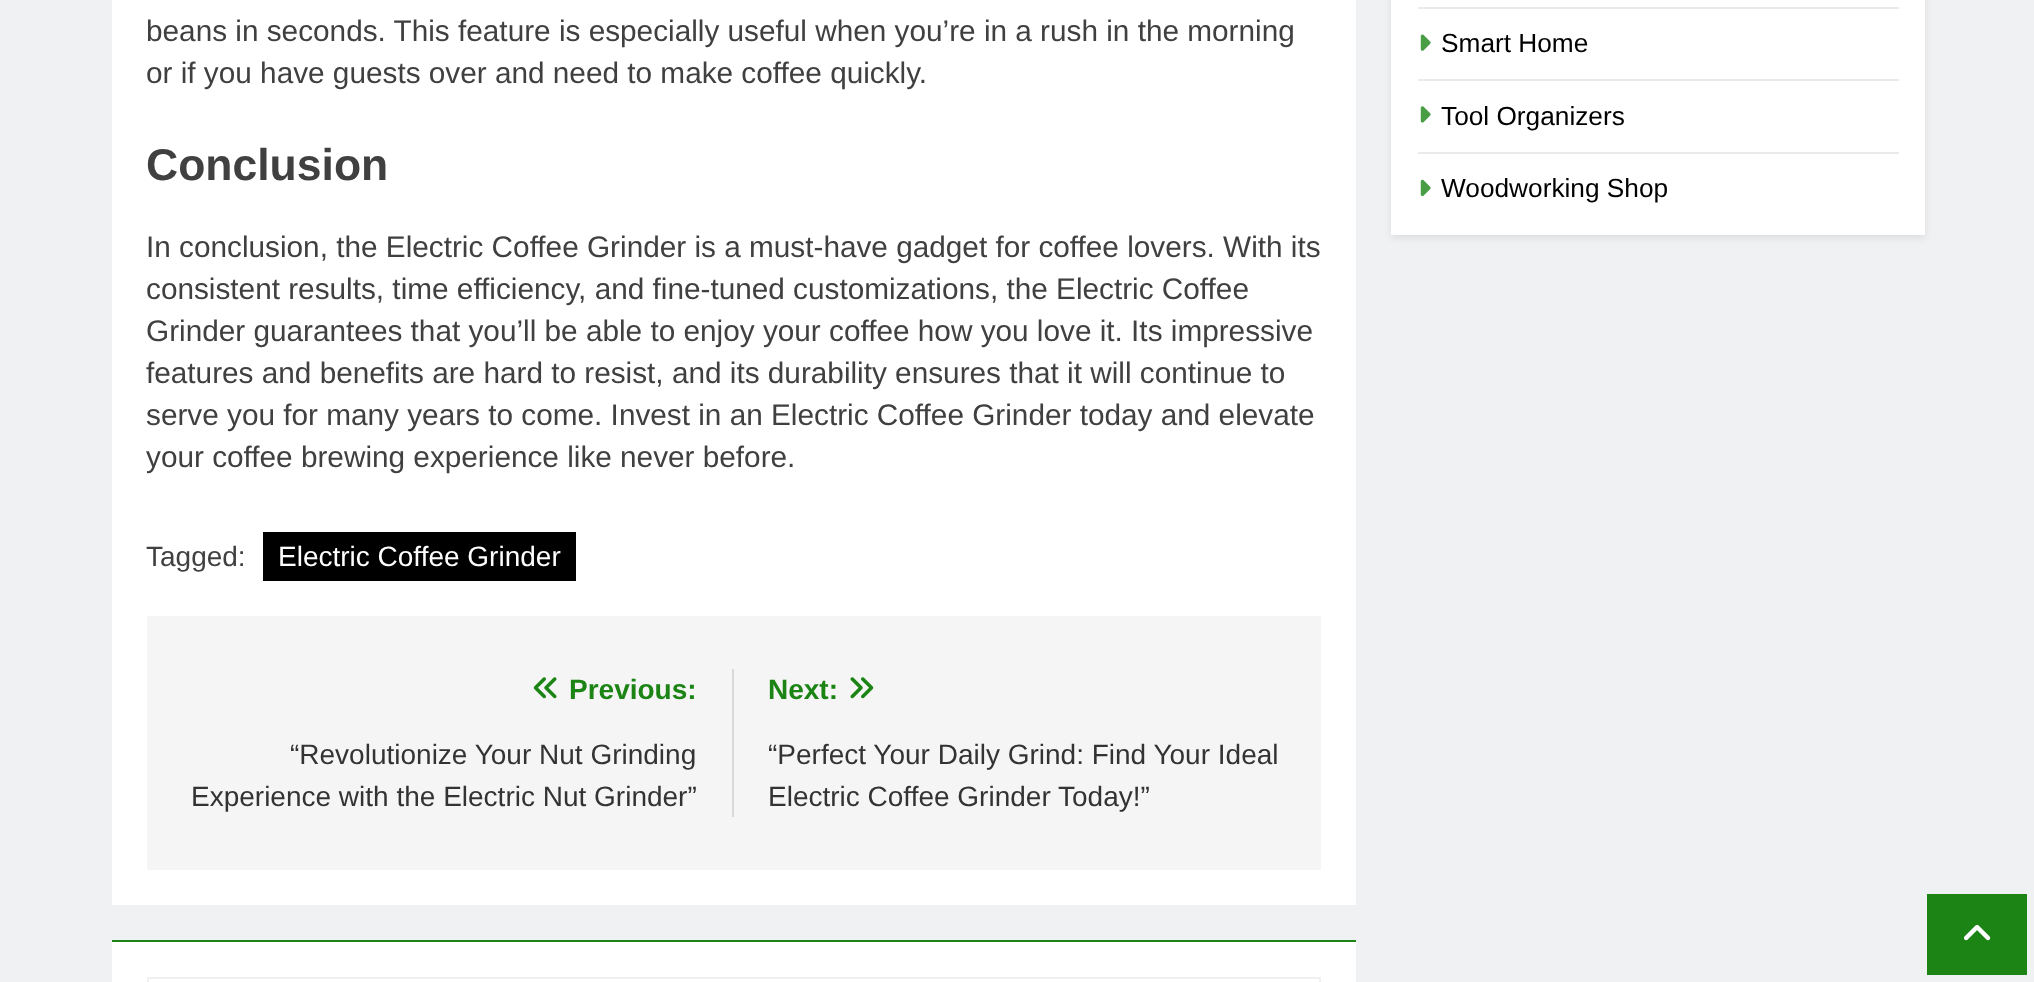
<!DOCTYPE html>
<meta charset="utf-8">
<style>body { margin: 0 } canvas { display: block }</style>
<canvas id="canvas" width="2034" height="982"></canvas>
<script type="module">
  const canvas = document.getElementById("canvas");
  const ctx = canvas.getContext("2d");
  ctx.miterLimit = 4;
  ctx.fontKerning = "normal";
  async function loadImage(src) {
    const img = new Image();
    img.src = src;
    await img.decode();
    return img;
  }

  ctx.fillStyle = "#f0f1f2";
  ctx.fillRect(0, 0, 2034, 982);
  ctx.fillStyle = "#ffffff";
  ctx.fillRect(112, 0, 1244, 905);
  ctx.font = "29.75px Liberation Sans";
  ctx.fillStyle = "#404040";
  ctx.fillText("beans in seconds. This feature is especially useful when you’re in a rush in the morning", 146, 41);
  ctx.fillText("or if you have guests over and need to make coffee quickly.", 146, 83);
  ctx.font = "bold 44.5px Liberation Sans";
  ctx.fillText("Conclusion", 146, 180);
  ctx.font = "29.75px Liberation Sans";
  ctx.fillText("In conclusion, the Electric Coffee Grinder is a must-have gadget for coffee lovers. With its", 146, 257);
  ctx.fillText("consistent results, time efficiency, and fine-tuned customizations, the Electric Coffee", 146, 299);
  ctx.fillText("Grinder guarantees that you’ll be able to enjoy your coffee how you love it. Its impressive", 146, 341);
  ctx.fillText("features and benefits are hard to resist, and its durability ensures that it will continue to", 146, 383);
  ctx.fillText("serve you for many years to come. Invest in an Electric Coffee Grinder today and elevate", 146, 425);
  ctx.fillText("your coffee brewing experience like never before.", 146, 467);
  ctx.font = "28px Liberation Sans";
  ctx.fillText("Tagged:", 146, 566);
  ctx.fillStyle = "#000000";
  ctx.fillRect(263, 532, 313, 49);
  ctx.fillStyle = "#ffffff";
  ctx.fillText("Electric Coffee Grinder", 278, 566);
  ctx.fillStyle = "#f5f5f5";
  ctx.fillRect(147, 616, 1174, 254);
  ctx.fillStyle = "#d9d9d9";
  ctx.fillRect(732, 669, 2, 148);
  ctx.drawImage(await loadImage("img1.png"), 533, 677, 24, 22);
  ctx.font = "bold 28px Liberation Sans";
  ctx.fillStyle = "#1b8415";
  ctx.fillText("Previous:", 569, 699);
  ctx.font = "28px Liberation Sans";
  ctx.fillStyle = "#333333";
  ctx.fillText("“Revolutionize Your Nut Grinding", 290, 764);
  ctx.fillText("Experience with the Electric Nut Grinder”", 191, 806);
  ctx.font = "bold 28px Liberation Sans";
  ctx.fillStyle = "#1b8415";
  ctx.fillText("Next:", 768, 699);
  ctx.drawImage(await loadImage("img2.png"), 850, 677, 24, 22);
  ctx.font = "28px Liberation Sans";
  ctx.fillStyle = "#333333";
  ctx.fillText("“Perfect Your Daily Grind: Find Your Ideal", 768, 764);
  ctx.fillText("Electric Coffee Grinder Today!”", 768, 806);
  ctx.fillStyle = "#ffffff";
  ctx.fillRect(112, 942, 1244, 40);
  ctx.fillStyle = "#1b8415";
  ctx.fillRect(112, 940, 1244, 2);
  ctx.strokeStyle = "#f0f0f0";
  ctx.lineWidth = 2;
  ctx.strokeRect(148, 978, 1172, 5);
  ctx.fillStyle = "rgba(0, 0, 0, 0.08)";
  ctx.filter = "blur(3.5px)";
  ctx.beginPath();
  ctx.rect(1391, -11, 534, 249);
  ctx.fill();
  ctx.filter = "none";
  ctx.fillStyle = "#ffffff";
  ctx.fillRect(1391, 0, 534, 235);
  ctx.fillStyle = "#eaeaea";
  ctx.fillRect(1418, 7, 481, 2);
  ctx.fillRect(1418, 79, 481, 2);
  ctx.drawImage(await loadImage("img3.png"), 1420, 34, 11, 17);
  ctx.font = "26.25px Liberation Sans";
  ctx.fillStyle = "#000000";
  ctx.fillText("Smart Home", 1441, 52);
  ctx.fillStyle = "#eaeaea";
  ctx.fillRect(1418, 152, 481, 2);
  ctx.drawImage(await loadImage("img4.png"), 1420, 106, 11, 17);
  ctx.fillStyle = "#000000";
  ctx.fillText("Tool Organizers", 1441, 125);
  ctx.drawImage(await loadImage("img5.png"), 1420, 179, 11, 18);
  ctx.fillText("Woodworking Shop", 1441, 197);
  ctx.fillStyle = "#1b8415";
  ctx.fillRect(1927, 894, 100, 81);
  ctx.drawImage(await loadImage("img6.png"), 1964, 924, 27, 17);
</script>
